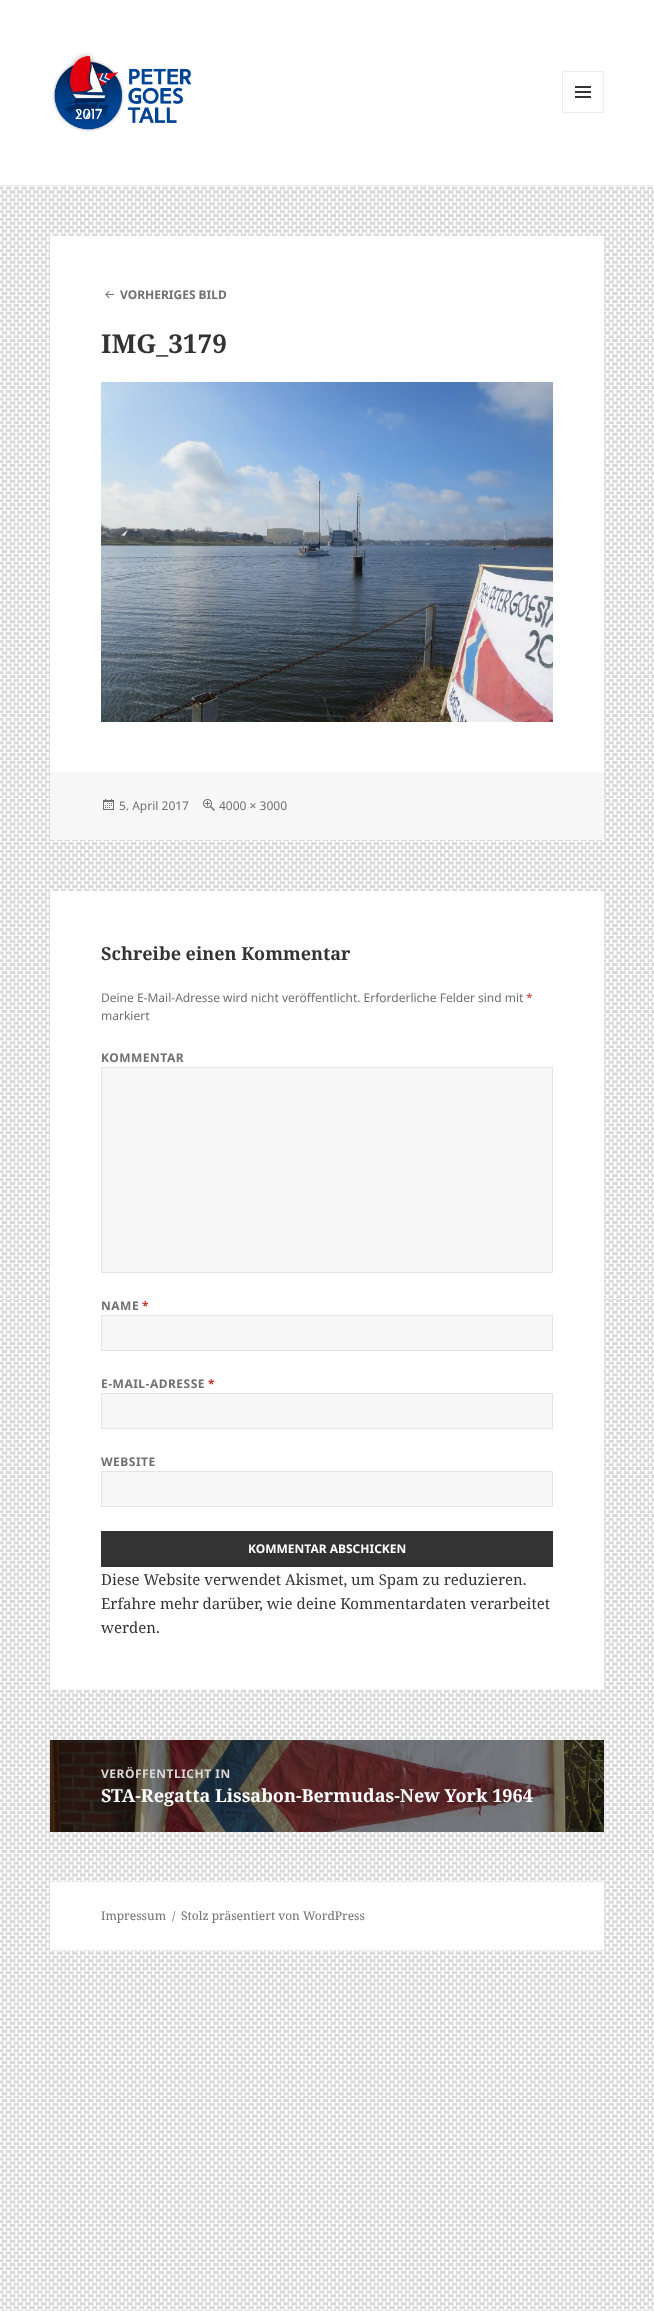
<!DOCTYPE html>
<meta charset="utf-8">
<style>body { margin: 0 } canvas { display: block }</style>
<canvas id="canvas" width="654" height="2311"></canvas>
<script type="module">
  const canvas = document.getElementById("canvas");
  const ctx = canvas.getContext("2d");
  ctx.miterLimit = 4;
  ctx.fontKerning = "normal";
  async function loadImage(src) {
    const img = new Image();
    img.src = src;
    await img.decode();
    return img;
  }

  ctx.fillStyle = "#ffffff";
  ctx.fillRect(0, 0, 654, 2311);
  ctx.drawImage(await loadImage("img1.png"), 0, 186, 654, 2125);
  ctx.fillStyle = "#ebebeb";
  ctx.fillRect(0, 185, 654, 1);
  ctx.drawImage(await loadImage("img2.png"), 52, 52, 139, 80);
  ctx.strokeStyle = "#ebebeb";
  ctx.strokeRect(562.5, 71.5, 41, 41);
  ctx.drawImage(await loadImage("img3.png"), 575, 86, 16, 12);
  ctx.fillStyle = "#ffffff";
  ctx.fillRect(50, 236, 554, 536);
  ctx.drawImage(await loadImage("img4.png"), 105, 290, 9, 9);
  ctx.font = "bold 12px Noto Sans";
  ctx.fillStyle = "#707070";
  ctx.fillText("VORHERIGES BILD", 120, 299);
  ctx.font = "bold 26px Noto Serif";
  ctx.fillStyle = "#333333";
  ctx.fillText("IMG_3179", 101, 353);
  ctx.drawImage(await loadImage("img5.png"), 101, 382, 452, 340);
  ctx.fillStyle = "#f7f7f7";
  ctx.fillRect(50, 772, 554, 68);
  ctx.drawImage(await loadImage("img6.png"), 103, 799, 11, 11);
  ctx.font = "12px Noto Sans";
  ctx.fillStyle = "#707070";
  ctx.fillText("5. April 2017", 119, 810);
  ctx.drawImage(await loadImage("img7.png"), 203, 799, 12, 12);
  ctx.fillText("4000 × 3000", 219, 810);
  ctx.fillStyle = "#ffffff";
  ctx.fillRect(50, 891, 554, 798);
  ctx.font = "bold 18px Noto Serif";
  ctx.fillStyle = "#333333";
  ctx.fillText("Schreibe einen Kommentar", 101, 960);
  ctx.font = "12px Noto Sans";
  ctx.fillStyle = "#707070";
  ctx.fillText("Deine E-Mail-Adresse wird nicht veröffentlicht. Erforderliche Felder sind mit", 101, 1002);
  ctx.fillStyle = "#c0392b";
  ctx.fillText("*", 526, 1002);
  ctx.fillStyle = "#707070";
  ctx.fillText("markiert", 101, 1020);
  ctx.letterSpacing = "0.5px";
  ctx.font = "bold 12px Noto Sans";
  ctx.fillText("KOMMENTAR", 101, 1062);
  ctx.fillStyle = "#f7f7f7";
  ctx.beginPath();
  ctx.rect(101.5, 1067.5, 451, 205);
  ctx.fill();
  ctx.strokeStyle = "#e3e3e3";
  ctx.stroke();
  ctx.fillStyle = "#707070";
  ctx.fillText("NAME", 101, 1310);
  ctx.fillStyle = "#c0392b";
  ctx.fillText("*", 142, 1310);
  ctx.fillStyle = "#f7f7f7";
  ctx.beginPath();
  ctx.rect(101.5, 1315.5, 451, 35);
  ctx.fill();
  ctx.stroke();
  ctx.fillStyle = "#707070";
  ctx.fillText("E-MAIL-ADRESSE", 101, 1388);
  ctx.fillStyle = "#c0392b";
  ctx.fillText("*", 208, 1388);
  ctx.fillStyle = "#f7f7f7";
  ctx.beginPath();
  ctx.rect(101.5, 1393.5, 451, 35);
  ctx.fill();
  ctx.stroke();
  ctx.fillStyle = "#707070";
  ctx.fillText("WEBSITE", 101, 1466);
  ctx.fillStyle = "#f7f7f7";
  ctx.beginPath();
  ctx.rect(101.5, 1471.5, 451, 35);
  ctx.fill();
  ctx.stroke();
  ctx.fillStyle = "#333333";
  ctx.fillRect(101, 1531, 452, 36);
  ctx.letterSpacing = "0px";
  ctx.fillStyle = "#ffffff";
  ctx.fillText("KOMMENTAR ABSCHICKEN", 248, 1553);
  ctx.font = "15px Noto Serif";
  ctx.fillStyle = "#333333";
  ctx.fillText("Diese Website verwendet Akismet, um Spam zu reduzieren.", 101, 1585);
  ctx.fillText("Erfahre mehr darüber, wie deine Kommentardaten verarbeitet", 101, 1609);
  ctx.fillText("werden.", 101, 1633);
  ctx.drawImage(await loadImage("img8.png"), 50, 1740, 554, 92);
  ctx.letterSpacing = "0.5px";
  ctx.font = "bold 12px Noto Sans";
  ctx.fillStyle = "#d9d7d6";
  ctx.fillText("VERÖFFENTLICHT IN", 101, 1778);
  ctx.letterSpacing = "0px";
  ctx.font = "bold 18px Noto Serif";
  ctx.fillStyle = "#ffffff";
  ctx.fillText("STA-Regatta Lissabon-Bermudas-New York 1964", 101, 1802);
  ctx.fillRect(50, 1882, 554, 68);
  ctx.font = "12px Noto Serif";
  ctx.fillStyle = "#707070";
  ctx.fillText("Impressum", 101, 1920);
  ctx.fillText("/", 172, 1920);
  ctx.fillText("Stolz präsentiert von WordPress", 181, 1920);
</script>
